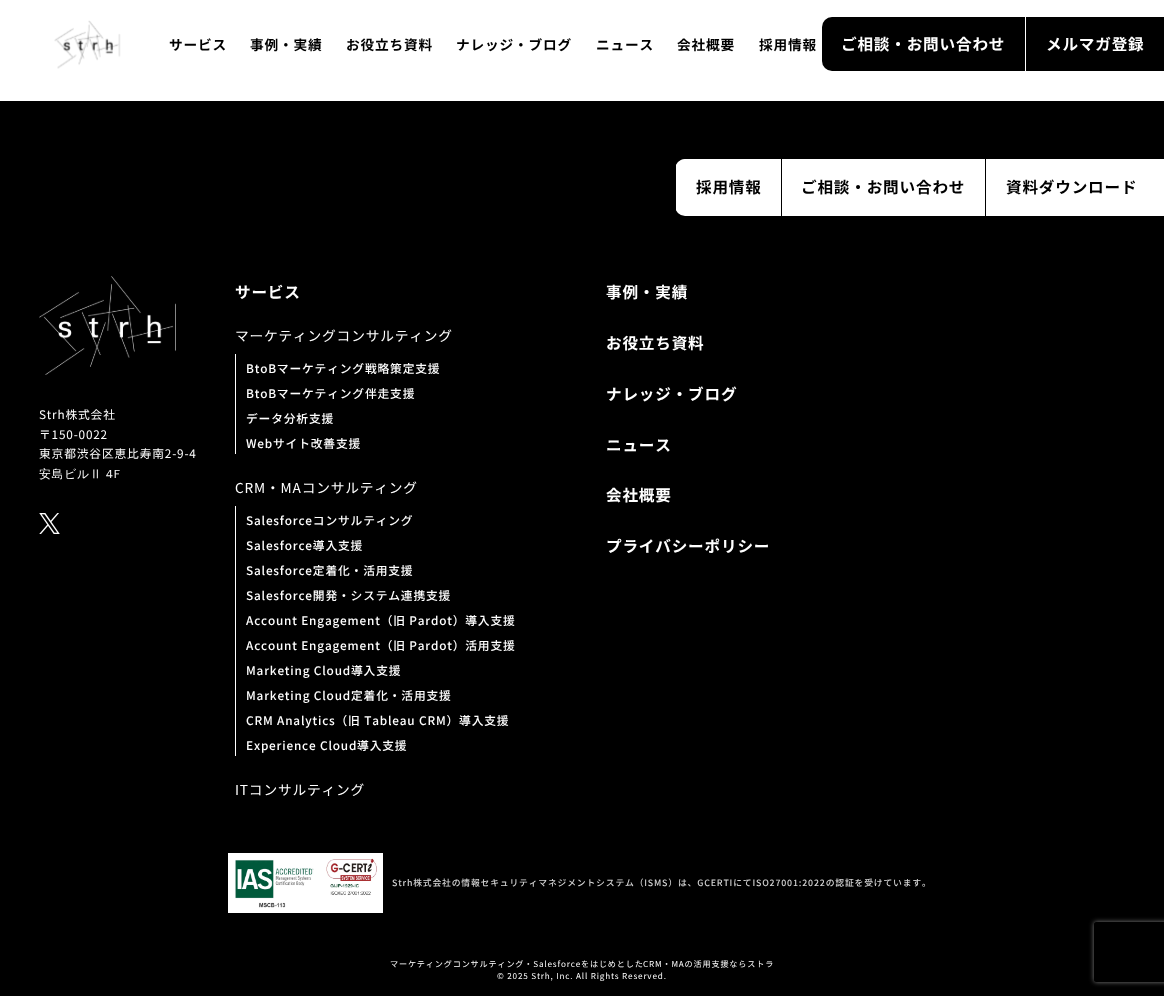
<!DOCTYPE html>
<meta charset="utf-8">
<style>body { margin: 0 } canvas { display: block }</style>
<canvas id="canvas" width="1164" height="996"></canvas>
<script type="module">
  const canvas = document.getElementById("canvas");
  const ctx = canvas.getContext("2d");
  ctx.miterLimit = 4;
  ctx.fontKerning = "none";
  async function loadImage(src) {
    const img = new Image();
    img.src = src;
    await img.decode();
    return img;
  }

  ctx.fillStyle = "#ffffff";
  ctx.fillRect(0, 0, 1164, 996);
  ctx.drawImage(await loadImage("img1.png"), 54, 20, 67, 49);
  ctx.letterSpacing = "0.83px";
  ctx.font = "bold 13.7px Noto Sans JP";
  ctx.fillStyle = "#000000";
  ctx.fillText("サービス", 169, 50);
  ctx.fillText("事例・実績", 250, 50);
  ctx.fillText("お役立ち資料", 346, 50);
  ctx.fillText("ナレッジ・ブログ", 456, 50);
  ctx.fillText("ニュース", 596, 50);
  ctx.fillText("会社概要", 677, 50);
  ctx.fillText("採用情報", 759, 50);
  ctx.beginPath();
  ctx.roundRect(822, 17, 203, 54, [10, 0, 0, 10]);
  ctx.fill();
  ctx.font = "bold 15.6px Noto Sans JP";
  ctx.fillStyle = "#ffffff";
  ctx.fillText("ご相談・お問い合わせ", 841, 50);
  ctx.fillStyle = "#000000";
  ctx.fillRect(1026, 17, 138, 54);
  ctx.fillStyle = "#ffffff";
  ctx.fillText("メルマガ登録", 1046, 50);
  ctx.fillStyle = "#000000";
  ctx.fillRect(0, 101, 1164, 895);
  ctx.fillStyle = "#ffffff";
  ctx.beginPath();
  ctx.roundRect(675, 159, 489, 57, [10, 0, 0, 10]);
  ctx.fill();
  ctx.fillStyle = "#000000";
  ctx.fillRect(675, 159, 1, 57);
  ctx.fillStyle = "#ffffff";
  ctx.beginPath();
  ctx.roundRect(676, 159, 105, 55, [10, 0, 0, 10]);
  ctx.fill();
  ctx.fillStyle = "#000000";
  ctx.fillText("採用情報", 696, 193);
  ctx.fillRect(781, 159, 1, 57);
  ctx.fillText("ご相談・お問い合わせ", 801, 193);
  ctx.fillRect(985, 159, 1, 57);
  ctx.fillText("資料ダウンロード", 1006, 193);
  ctx.drawImage(await loadImage("img2.png"), 39, 276, 137, 99);
  ctx.font = "11.75px Noto Sans JP";
  ctx.fillStyle = "#ffffff";
  ctx.fillText("Strh株式会社", 39, 419);
  ctx.fillText("〒150-0022", 39, 439);
  ctx.fillText("東京都渋谷区恵比寿南2-9-4", 39, 458);
  ctx.wordSpacing = "-1px";
  ctx.font = "500 11.75px WenQuanYi Zen Hei";
  ctx.fillText("安島ビルⅡ 4F", 39, 478);
  ctx.drawImage(await loadImage("img3.png"), 39, 513, 21, 21);
  ctx.wordSpacing = "0px";
  ctx.font = "bold 15.6px Noto Sans JP";
  ctx.fillText("サービス", 235, 298);
  ctx.font = "13.7px Noto Sans JP";
  ctx.fillText("マーケティングコンサルティング", 235, 341);
  ctx.fillRect(235, 354, 1, 100);
  ctx.font = "500 11.75px Noto Sans JP";
  ctx.fillText("BtoBマーケティング戦略策定支援", 246, 373);
  ctx.fillText("BtoBマーケティング伴走支援", 246, 398);
  ctx.fillText("データ分析支援", 246, 423);
  ctx.fillText("Webサイト改善支援", 246, 448);
  ctx.font = "13.7px Noto Sans JP";
  ctx.fillText("CRM・MAコンサルティング", 235, 493);
  ctx.fillRect(235, 506, 1, 250);
  ctx.font = "500 11.75px Noto Sans JP";
  ctx.fillText("Salesforceコンサルティング", 246, 525);
  ctx.fillText("Salesforce導入支援", 246, 550);
  ctx.fillText("Salesforce定着化・活用支援", 246, 575);
  ctx.fillText("Salesforce開発・システム連携支援", 246, 600);
  ctx.fillText("Account Engagement（旧 Pardot）導入支援", 246, 625);
  ctx.fillText("Account Engagement（旧 Pardot）活用支援", 246, 650);
  ctx.fillText("Marketing Cloud導入支援", 246, 675);
  ctx.fillText("Marketing Cloud定着化・活用支援", 246, 700);
  ctx.fillText("CRM Analytics（旧 Tableau CRM）導入支援", 246, 725);
  ctx.fillText("Experience Cloud導入支援", 246, 750);
  ctx.font = "13.7px Noto Sans JP";
  ctx.fillText("ITコンサルティング", 235, 795);
  ctx.font = "bold 15.6px Noto Sans JP";
  ctx.fillText("事例・実績", 606, 298);
  ctx.fillText("お役立ち資料", 606, 349);
  ctx.fillText("ナレッジ・ブログ", 606, 400);
  ctx.fillText("ニュース", 606, 451);
  ctx.fillText("会社概要", 606, 501);
  ctx.fillText("プライバシーポリシー", 606, 552);
  ctx.drawImage(await loadImage("img4.png"), 228, 853, 155, 60);
  ctx.font = "500 8.8px Noto Sans JP";
  ctx.fillStyle = "#d3d3d3";
  ctx.fillText("Strh株式会社の情報セキュリティマネジメントシステム（ISMS）は、GCERTIにてISO27001:2022の認証を受けています。", 392, 886);
  ctx.font = "8.15px Noto Sans JP";
  ctx.fillStyle = "#ffffff";
  ctx.fillText("マーケティングコンサルティング・Salesforceをはじめとした", 390, 967);
  ctx.fillText("CRM・MAの活用支援ならストラ", 643, 967);
  ctx.fillText("© 2025 Strh, Inc. All Rights Reserved.", 497, 979);
  ctx.save();
  ctx.beginPath();
  ctx.moveTo(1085, 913);
  ctx.lineTo(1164, 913);
  ctx.lineTo(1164, 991);
  ctx.lineTo(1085, 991);
  ctx.closePath();
  ctx.moveTo(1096, 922);
  ctx.lineTo(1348, 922);
  ctx.bezierCurveTo(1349, 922, 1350, 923, 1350, 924);
  ctx.lineTo(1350, 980);
  ctx.bezierCurveTo(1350, 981, 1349, 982, 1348, 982);
  ctx.lineTo(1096, 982);
  ctx.bezierCurveTo(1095, 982, 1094, 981, 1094, 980);
  ctx.lineTo(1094, 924);
  ctx.bezierCurveTo(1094, 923, 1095, 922, 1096, 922);
  ctx.closePath();
  ctx.clip("evenodd");
  ctx.fillStyle = "#808080";
  ctx.filter = "blur(2.5px)";
  ctx.beginPath();
  ctx.roundRect(1094, 922, 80, 60, 2);
  ctx.fill();
  ctx.filter = "none";
  ctx.restore();
</script>
